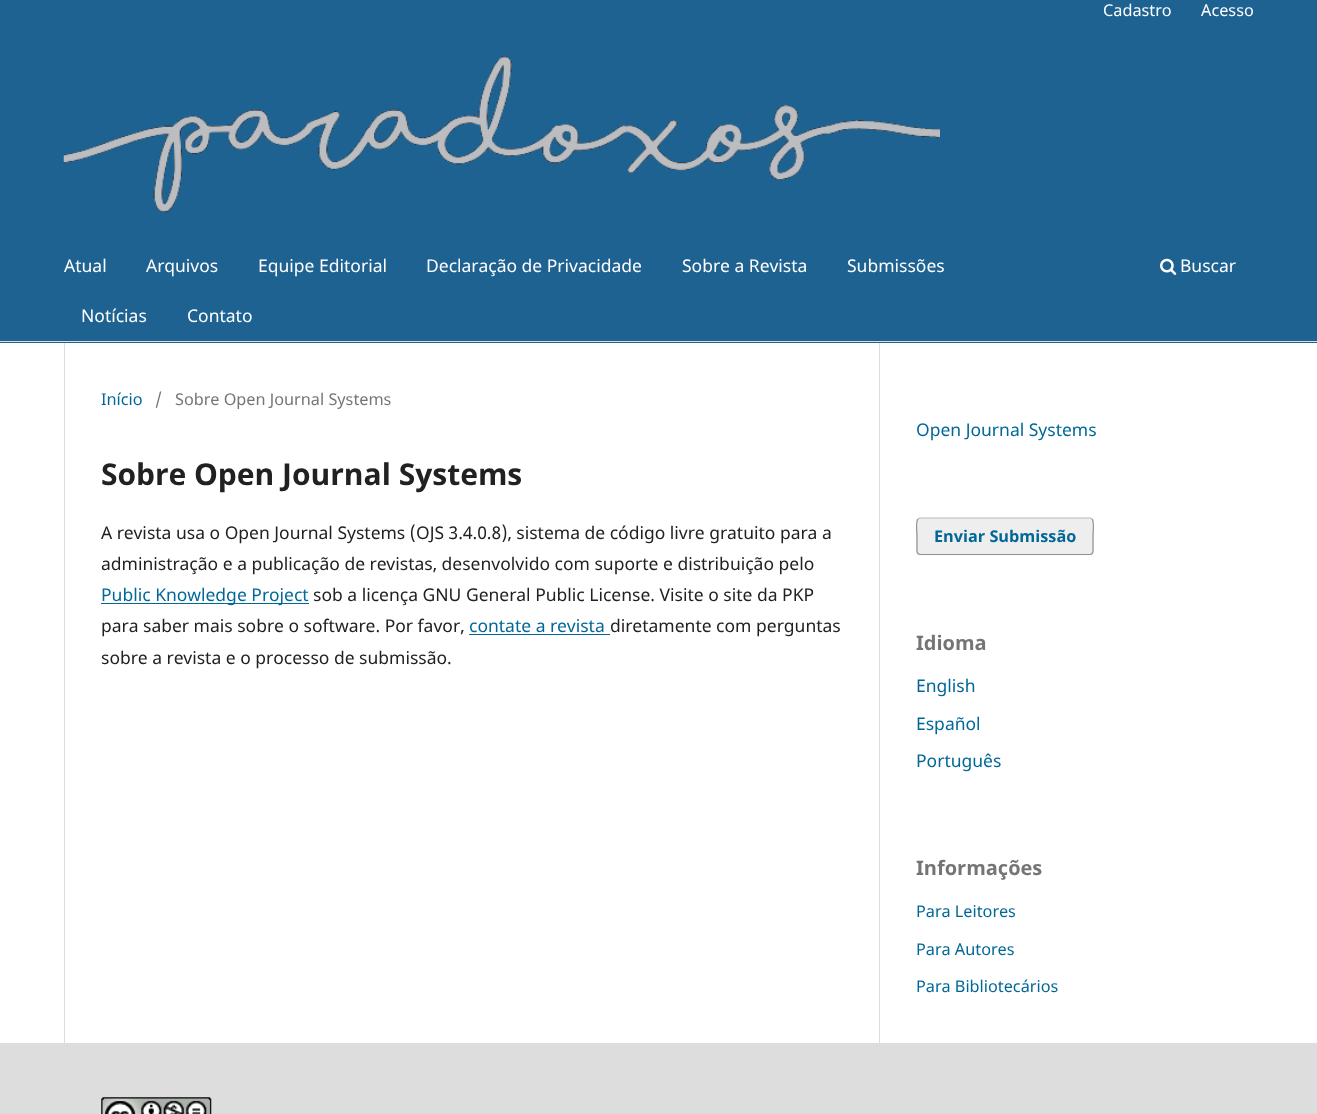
<!DOCTYPE html>
<meta charset="utf-8">
<style>body { margin: 0 } canvas { display: block }</style>
<canvas id="canvas" width="1317" height="1114"></canvas>
<script type="module">
  const canvas = document.getElementById("canvas");
  const ctx = canvas.getContext("2d");
  ctx.miterLimit = 4;
  ctx.fontKerning = "normal";
  async function loadImage(src) {
    const img = new Image();
    img.src = src;
    await img.decode();
    return img;
  }

  ctx.fillStyle = "#ffffff";
  ctx.fillRect(0, 0, 1317, 1114);
  ctx.fillStyle = "#1e6292";
  ctx.fillRect(0, 0, 1317, 343);
  ctx.fillStyle = "#dddddd";
  ctx.fillRect(0, 341, 1317, 1);
  ctx.font = "16.25px Noto Sans";
  ctx.fillStyle = "#ffffff";
  ctx.fillText("Cadastro", 1103, 16);
  ctx.fillText("Acesso", 1201, 16);
  ctx.font = "17.5px Noto Sans";
  ctx.fillText("Atual", 64, 272);
  ctx.fillText("Arquivos", 146, 272);
  ctx.fillText("Equipe Editorial", 258, 272);
  ctx.fillText("Declaração de Privacidade", 426, 272);
  ctx.fillText("Sobre a Revista", 682, 272);
  ctx.fillText("Submissões", 847, 272);
  ctx.fillText("Notícias", 81, 322);
  ctx.fillText("Contato", 187, 322);
  ctx.drawImage(await loadImage("img1.png"), 1160, 258, 17, 17);
  ctx.fillText("Buscar", 1180, 272);
  ctx.drawImage(await loadImage("img2.png"), 63, 56, 877, 157);
  ctx.fillStyle = "#dddddd";
  ctx.fillRect(64, 343, 1, 700);
  ctx.font = "16.25px Noto Sans";
  ctx.fillStyle = "#006798";
  ctx.fillText("Início", 101, 405);
  ctx.fillStyle = "#757575";
  ctx.fillText("/", 155, 405);
  ctx.fillText("Sobre Open Journal Systems", 175, 405);
  ctx.font = "bold 30px Noto Sans";
  ctx.fillStyle = "#212121";
  ctx.fillText("Sobre Open Journal Systems", 101, 485);
  ctx.font = "17.5px Noto Sans";
  ctx.fillText("A revista usa o Open Journal Systems (OJS 3.4.0.8), sistema de código livre gratuito para a", 101, 539);
  ctx.fillText("administração e a publicação de revistas, desenvolvido com suporte e distribuição pelo", 101, 570);
  ctx.fillStyle = "#006798";
  ctx.fillRect(101, 603, 208, 1);
  ctx.fillText("Public Knowledge Project", 101, 601);
  ctx.fillStyle = "#212121";
  ctx.fillText("sob a licença GNU General Public License. Visite o site da PKP", 313, 601);
  ctx.fillText("para saber mais sobre o software. Por favor,", 101, 632);
  ctx.fillStyle = "#006798";
  ctx.fillText("contate a revista", 469, 632);
  ctx.fillRect(469, 634, 141, 1);
  ctx.fillStyle = "#212121";
  ctx.fillText("diretamente com perguntas", 610, 632);
  ctx.fillText("sobre a revista e o processo de submissão.", 101, 664);
  ctx.fillStyle = "#dddddd";
  ctx.fillRect(879, 343, 1, 700);
  ctx.fillStyle = "#006798";
  ctx.fillText("Open Journal Systems", 916, 436);
  ctx.fillStyle = "#eeeeee";
  ctx.beginPath();
  ctx.roundRect(916, 518, 178, 37, 4);
  ctx.fill();
  ctx.beginPath();
  ctx.moveTo(918, 519);
  ctx.lineTo(920, 518);
  ctx.lineTo(1090, 518);
  ctx.lineTo(1092, 519);
  ctx.strokeStyle = "#bbbbbb";
  ctx.lineWidth = 1.2;
  ctx.stroke();
  ctx.beginPath();
  ctx.moveTo(1092, 519);
  ctx.bezierCurveTo(1094.5, 521, 1093, 533, 1093, 536);
  ctx.lineTo(1093, 546);
  ctx.bezierCurveTo(1093, 548.5, 1094, 554.5, 1090, 554.5);
  ctx.lineTo(920, 554.5);
  ctx.bezierCurveTo(916, 554.5, 917, 548.5, 917, 546);
  ctx.lineTo(917, 536);
  ctx.bezierCurveTo(917, 533, 915.5, 521, 918, 519);
  ctx.strokeStyle = "rgba(0, 0, 0, 0.4)";
  ctx.stroke();
  ctx.font = "bold 16.25px Noto Sans";
  ctx.fillStyle = "#006798";
  ctx.fillText("Enviar Submissão", 934, 542);
  ctx.font = "bold 20px Noto Sans";
  ctx.fillStyle = "#757575";
  ctx.fillText("Idioma", 916, 650);
  ctx.font = "17.5px Noto Sans";
  ctx.fillStyle = "#006798";
  ctx.fillText("English", 916, 692);
  ctx.fillText("Español", 916, 730);
  ctx.fillText("Português", 916, 767);
  ctx.font = "bold 20px Noto Sans";
  ctx.fillStyle = "#757575";
  ctx.fillText("Informações", 916, 875);
  ctx.font = "16.25px Noto Sans";
  ctx.fillStyle = "#006798";
  ctx.fillText("Para Leitores", 916, 917);
  ctx.fillText("Para Autores", 916, 955);
  ctx.fillText("Para Bibliotecários", 916, 992);
  ctx.fillStyle = "#dddddd";
  ctx.fillRect(0, 1043, 1317, 71);
  ctx.drawImage(await loadImage("img3.png"), 101, 1097, 111, 17);
</script>
